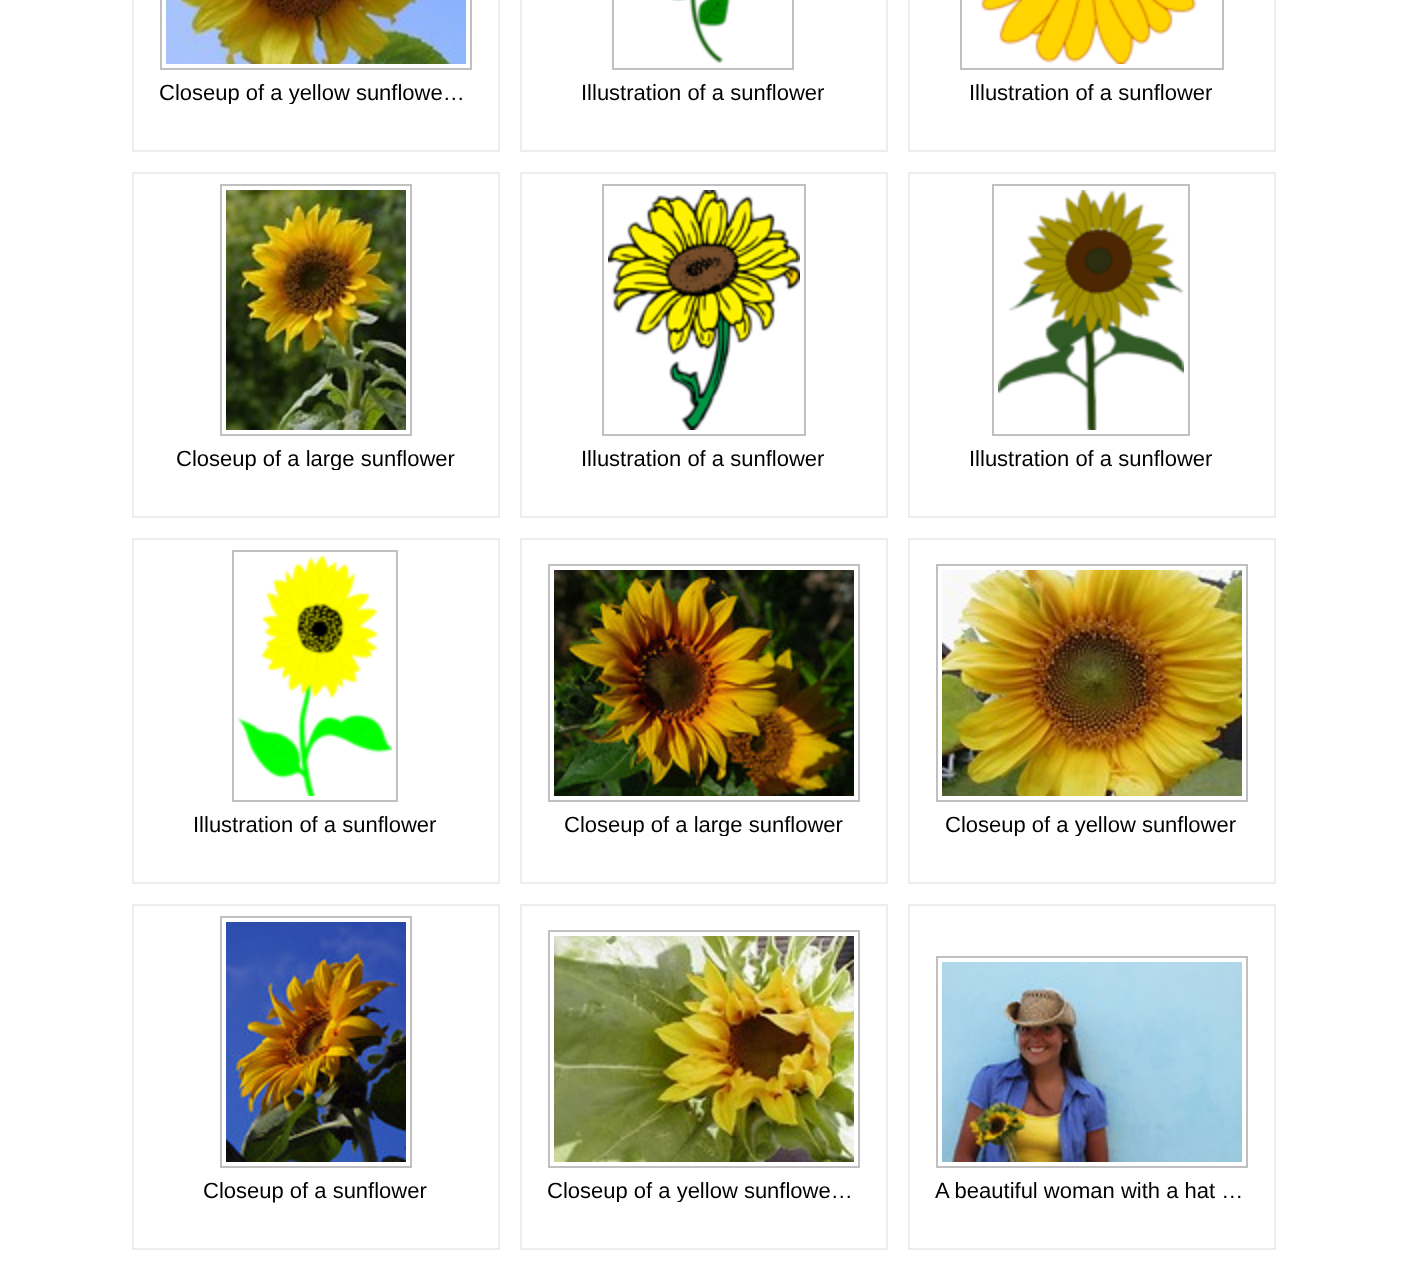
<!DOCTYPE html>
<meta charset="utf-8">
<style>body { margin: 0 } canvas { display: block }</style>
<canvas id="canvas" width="1406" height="1263"></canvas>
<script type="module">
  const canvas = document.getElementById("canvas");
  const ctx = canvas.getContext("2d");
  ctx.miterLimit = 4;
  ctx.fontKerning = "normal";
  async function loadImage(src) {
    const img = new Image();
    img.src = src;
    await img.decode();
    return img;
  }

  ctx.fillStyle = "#ffffff";
  ctx.fillRect(0, 0, 1406, 1263);
  ctx.strokeStyle = "#ededed";
  ctx.lineWidth = 2;
  ctx.strokeRect(133, -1, 366, 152);
  ctx.strokeStyle = "#c0c0c0";
  ctx.strokeRect(161, -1, 310, 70);
  ctx.drawImage(await loadImage("img1.png"), 166, 0, 300, 64);
  ctx.save();
  ctx.beginPath();
  ctx.rect(160, 80, 312, 24);
  ctx.clip();
  ctx.font = "22px Liberation Sans";
  ctx.fillStyle = "#000000";
  ctx.fillText("Closeup of a yellow sunflowe…", 159, 100);
  ctx.restore();
  ctx.strokeStyle = "#ededed";
  ctx.strokeRect(521, -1, 366, 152);
  ctx.strokeStyle = "#c0c0c0";
  ctx.strokeRect(613, -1, 180, 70);
  ctx.drawImage(await loadImage("img2.png"), 671, 0, 60, 64);
  ctx.font = "22px Liberation Sans";
  ctx.fillStyle = "#000000";
  ctx.fillText("Illustration of a sunflower", 581, 100);
  ctx.strokeStyle = "#ededed";
  ctx.strokeRect(909, -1, 366, 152);
  ctx.strokeStyle = "#c0c0c0";
  ctx.strokeRect(961, -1, 262, 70);
  ctx.drawImage(await loadImage("img3.png"), 981, 0, 216, 64);
  ctx.fillText("Illustration of a sunflower", 969, 100);
  ctx.strokeStyle = "#ededed";
  ctx.strokeRect(133, 173, 366, 344);
  ctx.strokeStyle = "#c0c0c0";
  ctx.strokeRect(221, 185, 190, 250);
  ctx.drawImage(await loadImage("img4.png"), 226, 190, 180, 240);
  ctx.save();
  ctx.beginPath();
  ctx.rect(160, 446, 312, 24);
  ctx.clip();
  ctx.fillText("Closeup of a large sunflower", 176, 466);
  ctx.restore();
  ctx.strokeStyle = "#ededed";
  ctx.strokeRect(521, 173, 366, 344);
  ctx.strokeStyle = "#c0c0c0";
  ctx.strokeRect(603, 185, 202, 250);
  ctx.drawImage(await loadImage("img5.png"), 608, 190, 192, 240);
  ctx.fillText("Illustration of a sunflower", 581, 466);
  ctx.strokeStyle = "#ededed";
  ctx.strokeRect(909, 173, 366, 344);
  ctx.strokeStyle = "#c0c0c0";
  ctx.strokeRect(993, 185, 196, 250);
  ctx.drawImage(await loadImage("img6.png"), 998, 190, 186, 240);
  ctx.fillText("Illustration of a sunflower", 969, 466);
  ctx.strokeStyle = "#ededed";
  ctx.strokeRect(133, 539, 366, 344);
  ctx.strokeStyle = "#c0c0c0";
  ctx.strokeRect(233, 551, 164, 250);
  ctx.drawImage(await loadImage("img7.png"), 238, 556, 154, 240);
  ctx.fillText("Illustration of a sunflower", 193, 832);
  ctx.strokeStyle = "#ededed";
  ctx.strokeRect(521, 539, 366, 344);
  ctx.strokeStyle = "#c0c0c0";
  ctx.strokeRect(549, 565, 310, 236);
  ctx.drawImage(await loadImage("img8.png"), 554, 570, 300, 226);
  ctx.save();
  ctx.beginPath();
  ctx.rect(548, 812, 312, 24);
  ctx.clip();
  ctx.fillText("Closeup of a large sunflower", 564, 832);
  ctx.restore();
  ctx.strokeStyle = "#ededed";
  ctx.strokeRect(909, 539, 366, 344);
  ctx.strokeStyle = "#c0c0c0";
  ctx.strokeRect(937, 565, 310, 236);
  ctx.drawImage(await loadImage("img9.png"), 942, 570, 300, 226);
  ctx.save();
  ctx.beginPath();
  ctx.rect(936, 812, 312, 24);
  ctx.clip();
  ctx.fillText("Closeup of a yellow sunflower", 945, 832);
  ctx.restore();
  ctx.strokeStyle = "#ededed";
  ctx.strokeRect(133, 905, 366, 344);
  ctx.strokeStyle = "#c0c0c0";
  ctx.strokeRect(221, 917, 190, 250);
  ctx.drawImage(await loadImage("img10.png"), 226, 922, 180, 240);
  ctx.fillText("Closeup of a sunflower", 203, 1198);
  ctx.strokeStyle = "#ededed";
  ctx.strokeRect(521, 905, 366, 344);
  ctx.strokeStyle = "#c0c0c0";
  ctx.strokeRect(549, 931, 310, 236);
  ctx.drawImage(await loadImage("img11.png"), 554, 936, 300, 226);
  ctx.save();
  ctx.beginPath();
  ctx.rect(548, 1178, 312, 24);
  ctx.clip();
  ctx.fillText("Closeup of a yellow sunflowe…", 547, 1198);
  ctx.restore();
  ctx.strokeStyle = "#ededed";
  ctx.strokeRect(909, 905, 366, 344);
  ctx.strokeStyle = "#c0c0c0";
  ctx.strokeRect(937, 957, 310, 210);
  ctx.drawImage(await loadImage("img12.png"), 942, 962, 300, 200);
  ctx.fillText("A beautiful woman with a hat …", 935, 1198);
</script>
